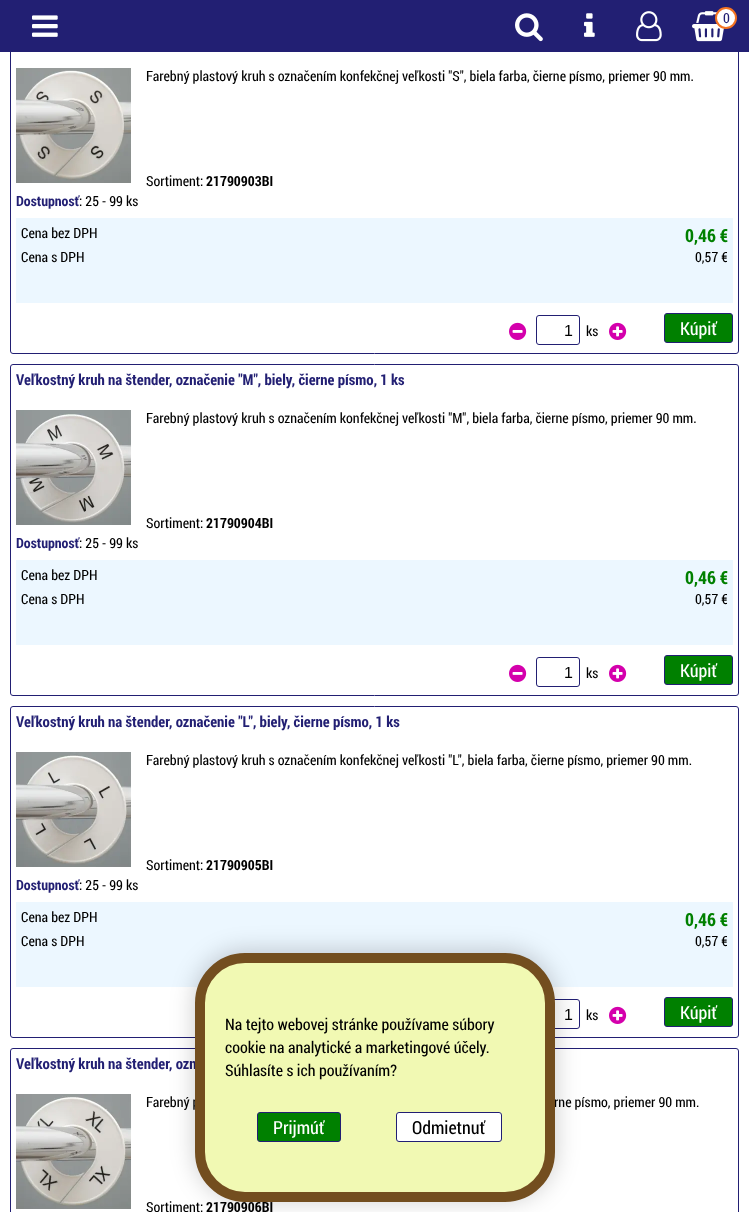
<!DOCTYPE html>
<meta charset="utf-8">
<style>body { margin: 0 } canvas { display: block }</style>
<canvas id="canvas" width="749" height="1212"></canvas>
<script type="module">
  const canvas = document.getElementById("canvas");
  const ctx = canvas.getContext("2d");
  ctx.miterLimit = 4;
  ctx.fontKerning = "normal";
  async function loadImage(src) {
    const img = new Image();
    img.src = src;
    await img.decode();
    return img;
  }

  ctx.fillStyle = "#ffffff";
  ctx.fillRect(0, 0, 749, 1212);
  ctx.beginPath();
  ctx.roundRect(10.5, 22.5, 728, 331, 2.5);
  ctx.strokeStyle = "#221f73";
  ctx.stroke();
  ctx.fillStyle = "#221f73";
  ctx.fillRect(0, 0, 749, 52);
  ctx.drawImage(await loadImage("img1.png"), 32, 15, 26, 22);
  ctx.drawImage(await loadImage("img2.png"), 515, 13, 28, 29);
  ctx.drawImage(await loadImage("img3.png"), 584, 13, 11, 24);
  ctx.drawImage(await loadImage("img4.png"), 636, 11, 26, 31);
  ctx.drawImage(await loadImage("img5.png"), 692, 11, 33, 31);
  ctx.fillStyle = "#ffffff";
  ctx.beginPath();
  ctx.arc(726, 18, 10, 0, Math.PI * 2);
  ctx.fill();
  ctx.strokeStyle = "#f47321";
  ctx.lineWidth = 2;
  ctx.stroke();
  ctx.font = "14px Roboto Condensed";
  ctx.fillStyle = "#221f73";
  ctx.fillText("0", 723, 23);
  ctx.drawImage(await loadImage("img6.png"), 16, 68, 115, 115);
  ctx.fillStyle = "#000000";
  ctx.fillText("Farebný plastový kruh s označením konfekčnej veľkosti \"S\", biela farba, čierne písmo, priemer 90 mm.", 146, 81);
  ctx.fillText("Sortiment:", 146, 186);
  ctx.font = "bold 14px Roboto Condensed";
  ctx.fillText("21790903BI", 206, 186);
  ctx.fillStyle = "#221f73";
  ctx.fillText("Dostupnosť", 16, 206);
  ctx.font = "14px Roboto Condensed";
  ctx.fillStyle = "#000000";
  ctx.fillText(": 25 - 99 ks", 79, 206);
  ctx.fillStyle = "#ecf7ff";
  ctx.fillRect(16, 218, 717, 85);
  ctx.fillStyle = "#000000";
  ctx.fillText("Cena bez DPH", 21, 238);
  ctx.font = "bold 18px Roboto Condensed";
  ctx.fillStyle = "#008000";
  ctx.fillText("0,46 €", 685, 242);
  ctx.font = "14px Roboto Condensed";
  ctx.fillStyle = "#000000";
  ctx.fillText("Cena s DPH", 21, 262);
  ctx.fillText("0,57 €", 695, 262);
  ctx.drawImage(await loadImage("img7.png"), 509, 322, 18, 18);
  ctx.beginPath();
  ctx.roundRect(536.5, 315.5, 43, 29, 2.5);
  ctx.strokeStyle = "#221f73";
  ctx.lineWidth = 1;
  ctx.stroke();
  ctx.font = "16px Liberation Sans";
  ctx.fillText("1", 564, 336);
  ctx.font = "14px Roboto Condensed";
  ctx.fillText("ks", 586, 336);
  ctx.drawImage(await loadImage("img8.png"), 609, 322, 18, 18);
  ctx.fillStyle = "#008000";
  ctx.beginPath();
  ctx.roundRect(664.5, 313.5, 68, 29, 2.5);
  ctx.fill();
  ctx.stroke();
  ctx.font = "18px Roboto Condensed";
  ctx.fillStyle = "#ffffff";
  ctx.fillText("Kúpiť", 680, 335);
  ctx.beginPath();
  ctx.roundRect(10.5, 364.5, 728, 331, 2.5);
  ctx.stroke();
  ctx.font = "bold 15px Roboto Condensed";
  ctx.fillStyle = "#221f73";
  ctx.fillText("Veľkostný kruh na štender, označenie \"M\", biely, čierne písmo, 1 ks", 16, 385);
  ctx.drawImage(await loadImage("img9.png"), 16, 410, 115, 115);
  ctx.font = "14px Roboto Condensed";
  ctx.fillStyle = "#000000";
  ctx.fillText("Farebný plastový kruh s označením konfekčnej veľkosti \"M\", biela farba, čierne písmo, priemer 90 mm.", 146, 423);
  ctx.fillText("Sortiment:", 146, 528);
  ctx.font = "bold 14px Roboto Condensed";
  ctx.fillText("21790904BI", 206, 528);
  ctx.fillStyle = "#221f73";
  ctx.fillText("Dostupnosť", 16, 548);
  ctx.font = "14px Roboto Condensed";
  ctx.fillStyle = "#000000";
  ctx.fillText(": 25 - 99 ks", 79, 548);
  ctx.fillStyle = "#ecf7ff";
  ctx.fillRect(16, 560, 717, 85);
  ctx.fillStyle = "#000000";
  ctx.fillText("Cena bez DPH", 21, 580);
  ctx.font = "bold 18px Roboto Condensed";
  ctx.fillStyle = "#008000";
  ctx.fillText("0,46 €", 685, 584);
  ctx.font = "14px Roboto Condensed";
  ctx.fillStyle = "#000000";
  ctx.fillText("Cena s DPH", 21, 604);
  ctx.fillText("0,57 €", 695, 604);
  ctx.drawImage(await loadImage("img7.png"), 509, 664, 18, 18);
  ctx.beginPath();
  ctx.roundRect(536.5, 657.5, 43, 29, 2.5);
  ctx.stroke();
  ctx.font = "16px Liberation Sans";
  ctx.fillText("1", 564, 678);
  ctx.font = "14px Roboto Condensed";
  ctx.fillText("ks", 586, 678);
  ctx.drawImage(await loadImage("img8.png"), 609, 664, 18, 18);
  ctx.fillStyle = "#008000";
  ctx.beginPath();
  ctx.roundRect(664.5, 655.5, 68, 29, 2.5);
  ctx.fill();
  ctx.stroke();
  ctx.font = "18px Roboto Condensed";
  ctx.fillStyle = "#ffffff";
  ctx.fillText("Kúpiť", 680, 677);
  ctx.beginPath();
  ctx.roundRect(10.5, 706.5, 728, 331, 2.5);
  ctx.stroke();
  ctx.font = "bold 15px Roboto Condensed";
  ctx.fillStyle = "#221f73";
  ctx.fillText("Veľkostný kruh na štender, označenie \"L\", biely, čierne písmo, 1 ks", 16, 727);
  ctx.drawImage(await loadImage("img10.png"), 16, 752, 115, 115);
  ctx.font = "14px Roboto Condensed";
  ctx.fillStyle = "#000000";
  ctx.fillText("Farebný plastový kruh s označením konfekčnej veľkosti \"L\", biela farba, čierne písmo, priemer 90 mm.", 146, 765);
  ctx.fillText("Sortiment:", 146, 870);
  ctx.font = "bold 14px Roboto Condensed";
  ctx.fillText("21790905BI", 206, 870);
  ctx.fillStyle = "#221f73";
  ctx.fillText("Dostupnosť", 16, 890);
  ctx.font = "14px Roboto Condensed";
  ctx.fillStyle = "#000000";
  ctx.fillText(": 25 - 99 ks", 79, 890);
  ctx.fillStyle = "#ecf7ff";
  ctx.fillRect(16, 902, 717, 85);
  ctx.fillStyle = "#000000";
  ctx.fillText("Cena bez DPH", 21, 922);
  ctx.font = "bold 18px Roboto Condensed";
  ctx.fillStyle = "#008000";
  ctx.fillText("0,46 €", 685, 926);
  ctx.font = "14px Roboto Condensed";
  ctx.fillStyle = "#000000";
  ctx.fillText("Cena s DPH", 21, 946);
  ctx.fillText("0,57 €", 695, 946);
  ctx.beginPath();
  ctx.roundRect(536.5, 999.5, 43, 29, 2.5);
  ctx.stroke();
  ctx.font = "16px Liberation Sans";
  ctx.fillText("1", 564, 1020);
  ctx.font = "14px Roboto Condensed";
  ctx.fillText("ks", 586, 1020);
  ctx.drawImage(await loadImage("img8.png"), 609, 1006, 18, 18);
  ctx.fillStyle = "#008000";
  ctx.beginPath();
  ctx.roundRect(664.5, 997.5, 68, 29, 2.5);
  ctx.fill();
  ctx.stroke();
  ctx.font = "18px Roboto Condensed";
  ctx.fillStyle = "#ffffff";
  ctx.fillText("Kúpiť", 680, 1019);
  ctx.beginPath();
  ctx.roundRect(10.5, 1048.5, 728, 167, 2.5);
  ctx.stroke();
  ctx.font = "bold 15px Roboto Condensed";
  ctx.fillStyle = "#221f73";
  ctx.fillText("Veľkostný kruh na štender, ozn", 16, 1069);
  ctx.drawImage(await loadImage("img11.png"), 16, 1094, 115, 115);
  ctx.font = "14px Roboto Condensed";
  ctx.fillStyle = "#000000";
  ctx.fillText("Farebný p", 146, 1107);
  ctx.fillText("rne písmo, priemer 90 mm.", 554, 1107);
  ctx.fillText("Sortiment:", 146, 1212);
  ctx.font = "bold 14px Roboto Condensed";
  ctx.fillText("21790906BI", 206, 1212);
  ctx.fillStyle = "rgba(0, 0, 0, 0.2)";
  ctx.filter = "blur(12.5px)";
  ctx.beginPath();
  ctx.roundRect(195, 951, 360, 249, 50);
  ctx.fill();
  ctx.filter = "none";
  ctx.fillStyle = "#f1f9b3";
  ctx.beginPath();
  ctx.roundRect(200, 958, 350, 239, 45);
  ctx.fill();
  ctx.strokeStyle = "#734e1f";
  ctx.lineWidth = 10;
  ctx.stroke();
  ctx.font = "16px Roboto Condensed";
  ctx.fillStyle = "#000000";
  ctx.fillText("Na tejto webovej stránke používame súbory", 225, 1030);
  ctx.fillText("cookie na analytické a marketingové účely.", 225, 1053);
  ctx.fillText("Súhlasíte s ich používaním?", 225, 1076);
  ctx.fillStyle = "#008000";
  ctx.beginPath();
  ctx.roundRect(257.5, 1112.5, 83, 29, 2.5);
  ctx.fill();
  ctx.strokeStyle = "#221f73";
  ctx.lineWidth = 1;
  ctx.stroke();
  ctx.font = "18px Roboto Condensed";
  ctx.fillStyle = "#ffffff";
  ctx.fillText("Prijmúť", 273, 1134);
  ctx.beginPath();
  ctx.roundRect(396.5, 1112.5, 105, 29, 2.5);
  ctx.fill();
  ctx.stroke();
  ctx.fillStyle = "#000000";
  ctx.fillText("Odmietnuť", 412, 1134);
</script>
